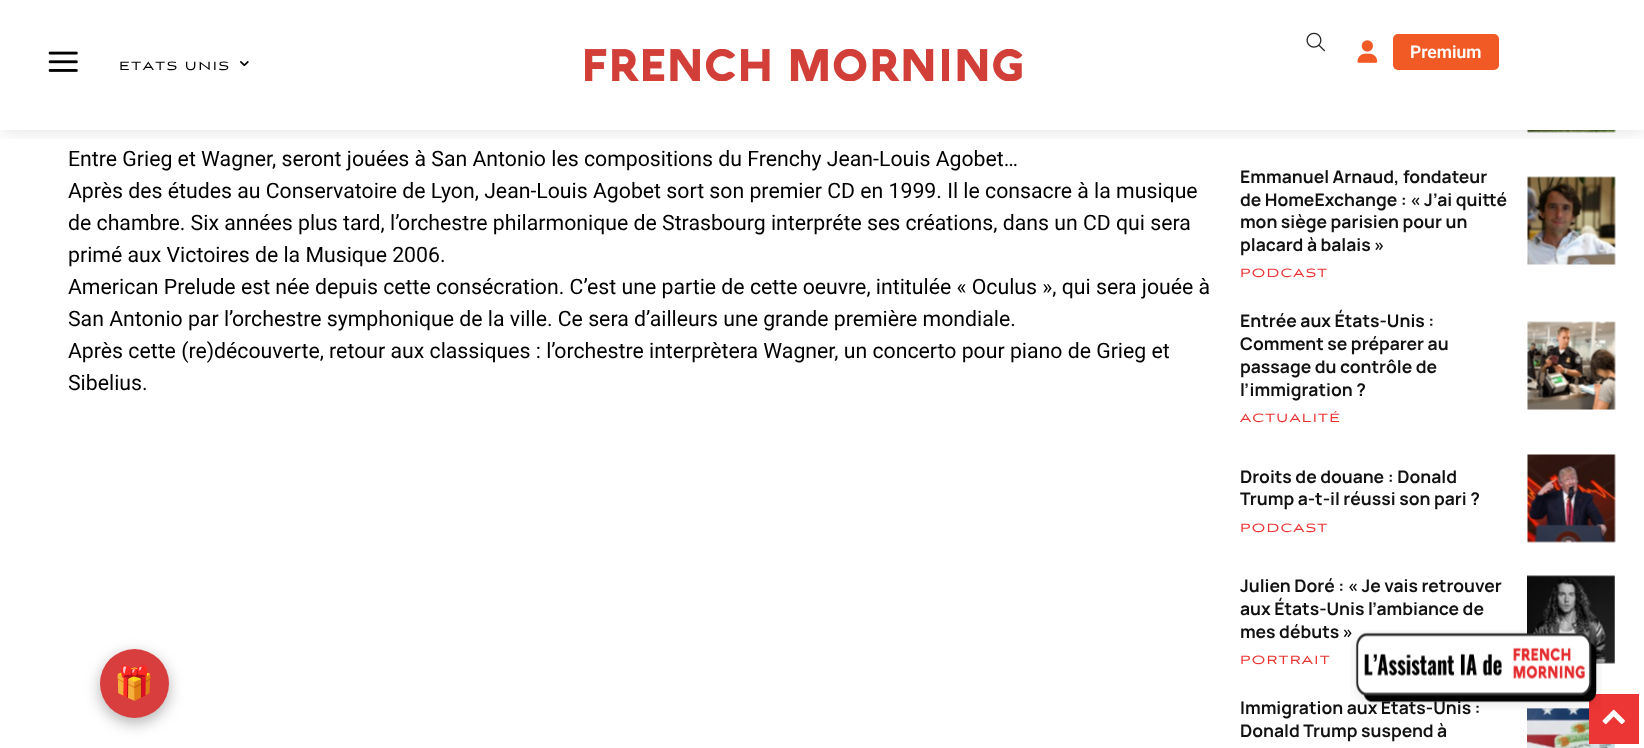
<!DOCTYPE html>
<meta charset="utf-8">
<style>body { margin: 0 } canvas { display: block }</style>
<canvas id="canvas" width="1644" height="748"></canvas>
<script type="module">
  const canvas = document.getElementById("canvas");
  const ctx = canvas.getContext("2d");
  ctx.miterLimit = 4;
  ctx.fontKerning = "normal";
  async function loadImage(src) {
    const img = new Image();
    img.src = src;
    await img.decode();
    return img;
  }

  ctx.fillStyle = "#ffffff";
  ctx.fillRect(0, 0, 1644, 748);
  ctx.drawImage(await loadImage("img1.png"), 48, 51, 30, 21);
  ctx.drawImage(await loadImage("img3.png"), 585, 49, 438, 32);
  ctx.drawImage(await loadImage("img5.png"), 1357, 40, 21, 23);
  ctx.fillStyle = "#f15a24";
  ctx.beginPath();
  ctx.roundRect(1393, 34, 106, 36, 5);
  ctx.fill();
  ctx.drawImage(await loadImage("img6.png"), 1527, 130, 89, 3);
  ctx.save();
  ctx.beginPath();
  ctx.rect(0, 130, 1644, 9);
  ctx.clip();
  ctx.fillStyle = "rgba(0, 0, 0, 0.12)";
  ctx.filter = "blur(9.5px)";
  ctx.beginPath();
  ctx.rect(0, 0, 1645, 130);
  ctx.fill();
  ctx.filter = "none";
  ctx.restore();
  ctx.letterSpacing = "1.6px";
  ctx.font = "15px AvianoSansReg";
  ctx.fillStyle = "#000000";
  ctx.fillText("ETATS UNIS", 119, 70);
  ctx.drawImage(await loadImage("img2.png"), 240, 61, 9, 6);
  ctx.drawImage(await loadImage("img4.png"), 1306, 32, 20, 20);
  ctx.letterSpacing = "0px";
  ctx.font = "600 17.5px Roboto";
  ctx.fillStyle = "#ffffff";
  ctx.fillText("Premium", 1410, 58);
  ctx.font = "21.25px Roboto";
  ctx.fillStyle = "#000000";
  ctx.fillText("Entre Grieg et Wagner, seront jouées à San Antonio les compositions du Frenchy Jean-Louis Agobet…", 68, 166);
  ctx.fillText("Après des études au Conservatoire de Lyon, Jean-Louis Agobet sort son premier CD en 1999. Il le consacre à la musique", 68, 198);
  ctx.fillText("de chambre. Six années plus tard, l’orchestre philarmonique de Strasbourg interpréte ses créations, dans un CD qui sera", 68, 230);
  ctx.fillText("primé aux Victoires de la Musique 2006.", 68, 262);
  ctx.fillText("American Prelude est née depuis cette consécration. C’est une partie de cette oeuvre, intitulée « Oculus », qui sera jouée à", 68, 294);
  ctx.fillText("San Antonio par l’orchestre symphonique de la ville. Ce sera d’ailleurs une grande première mondiale.", 68, 326);
  ctx.fillText("Après cette (re)découverte, retour aux classiques : l’orchestre interprètera Wagner, un concerto pour piano de Grieg et", 68, 358);
  ctx.fillText("Sibelius.", 68, 390);
  ctx.font = "bold 17.5px Manrope";
  ctx.fillStyle = "#111111";
  ctx.fillText("Emmanuel Arnaud, fondateur", 1240, 183);
  ctx.fillText("de HomeExchange : « J’ai quitté", 1240, 206);
  ctx.fillText("mon siège parisien pour un", 1240, 228);
  ctx.fillText("placard à balais »", 1240, 251);
  ctx.letterSpacing = "1.25px";
  ctx.font = "15px AvianoSansReg";
  ctx.fillStyle = "#ec3535";
  ctx.fillText("PODCAST", 1240, 277);
  ctx.drawImage(await loadImage("img7.png"), 1527, 176, 89, 89);
  ctx.letterSpacing = "0px";
  ctx.font = "bold 17.5px Manrope";
  ctx.fillStyle = "#111111";
  ctx.fillText("Entrée aux États-Unis :", 1240, 327);
  ctx.fillText("Comment se préparer au", 1240, 350);
  ctx.fillText("passage du contrôle de", 1240, 373);
  ctx.fillText("l’immigration ?", 1240, 396);
  ctx.letterSpacing = "1.25px";
  ctx.font = "15px AvianoSansReg";
  ctx.fillStyle = "#ec3535";
  ctx.fillText("ACTUALITÉ", 1240, 422);
  ctx.drawImage(await loadImage("img8.png"), 1527, 321, 89, 89);
  ctx.letterSpacing = "0px";
  ctx.font = "bold 17.5px Manrope";
  ctx.fillStyle = "#111111";
  ctx.fillText("Droits de douane : Donald", 1240, 483);
  ctx.fillText("Trump a-t-il réussi son pari ?", 1240, 505);
  ctx.letterSpacing = "1.25px";
  ctx.font = "15px AvianoSansReg";
  ctx.fillStyle = "#ec3535";
  ctx.fillText("PODCAST", 1240, 532);
  ctx.drawImage(await loadImage("img9.png"), 1527, 454, 89, 89);
  ctx.letterSpacing = "0px";
  ctx.font = "bold 17.5px Manrope";
  ctx.fillStyle = "#111111";
  ctx.fillText("Julien Doré : « Je vais retrouver", 1240, 592);
  ctx.fillText("aux États-Unis l’ambiance de", 1240, 615);
  ctx.fillText("mes débuts »", 1240, 638);
  ctx.letterSpacing = "1.25px";
  ctx.font = "15px AvianoSansReg";
  ctx.fillStyle = "#ec3535";
  ctx.fillText("PORTRAIT", 1240, 664);
  ctx.drawImage(await loadImage("img10.png"), 1527, 575, 88, 89);
  ctx.letterSpacing = "0px";
  ctx.font = "bold 17.5px Manrope";
  ctx.fillStyle = "#111111";
  ctx.fillText("Immigration aux États-Unis :", 1240, 714);
  ctx.fillText("Donald Trump suspend à", 1240, 737);
  ctx.drawImage(await loadImage("img11.png"), 1527, 708, 88, 40);
  ctx.fillStyle = "rgba(0, 0, 0, 0.3)";
  ctx.filter = "blur(7.5px)";
  ctx.beginPath();
  ctx.roundRect(100, 654, 69, 69, 34.5);
  ctx.fill();
  ctx.filter = "none";
  ctx.fillStyle = "#d83e3e";
  ctx.beginPath();
  ctx.arc(134.5, 683.5, 34.5, 0, Math.PI * 2);
  ctx.fill();
  ctx.font = "32px Noto Color Emoji";
  ctx.fillStyle = "#ffffff";
  ctx.fillText("🎁", 114, 694);
  ctx.fillStyle = "#ec3535";
  ctx.fillRect(1589, 694, 50, 50);
  ctx.drawImage(await loadImage("img12.png"), 1350, 630, 252, 80);
  ctx.drawImage(await loadImage("img13.png"), 1602, 709, 23, 16);
</script>
